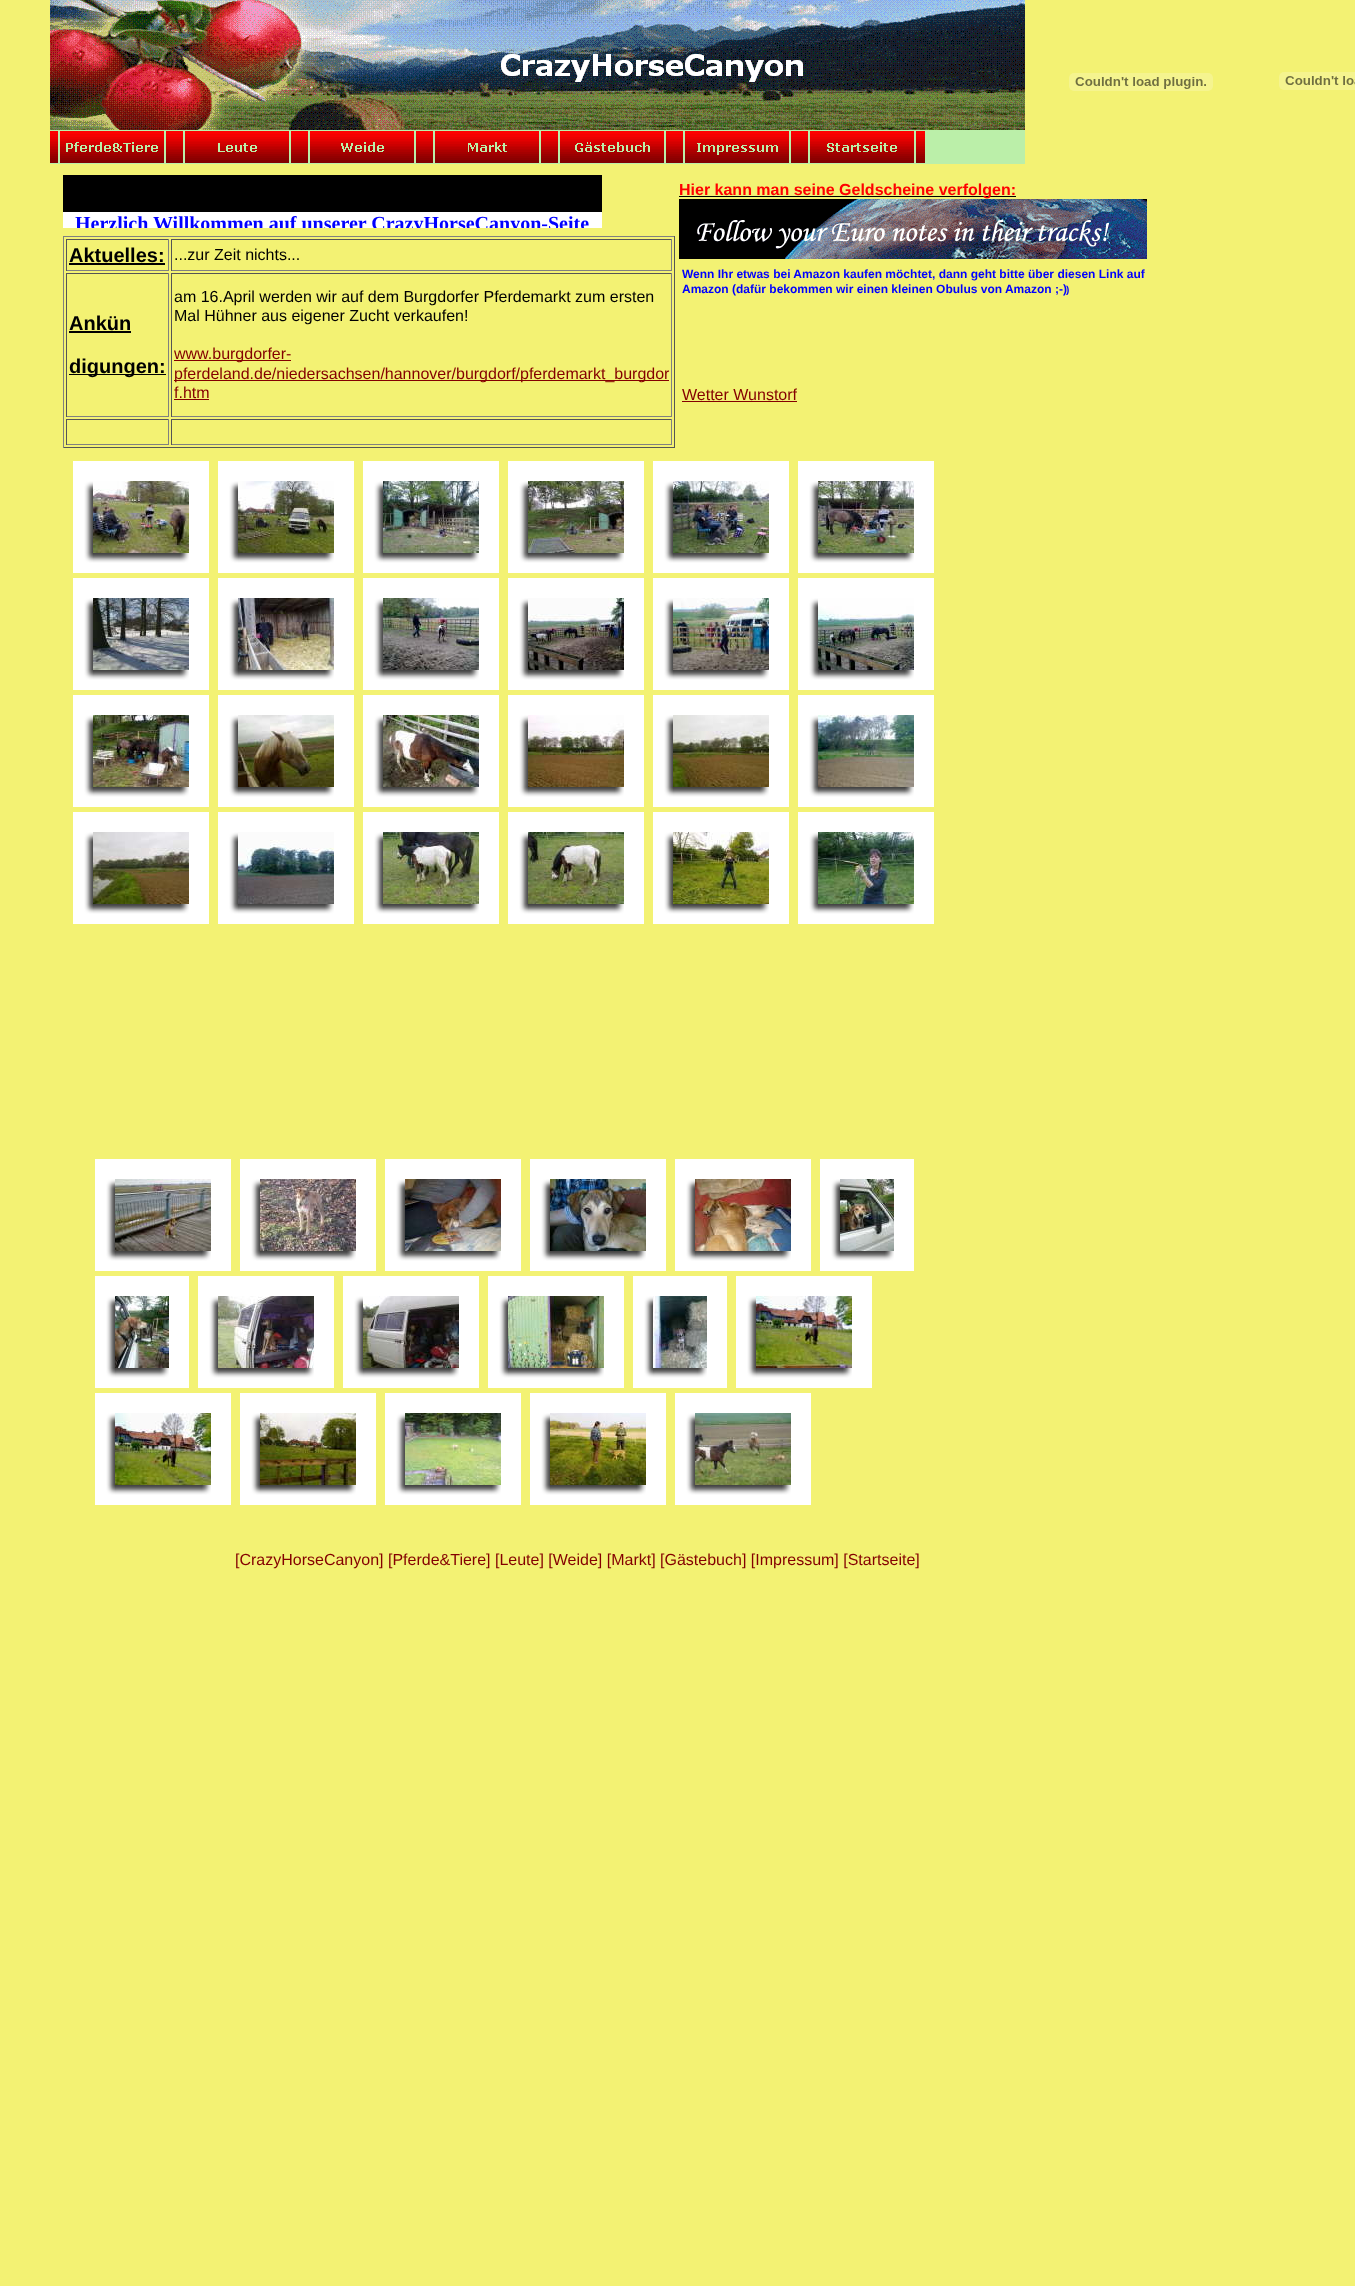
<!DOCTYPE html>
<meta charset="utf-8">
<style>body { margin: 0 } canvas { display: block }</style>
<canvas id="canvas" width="1355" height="2286"></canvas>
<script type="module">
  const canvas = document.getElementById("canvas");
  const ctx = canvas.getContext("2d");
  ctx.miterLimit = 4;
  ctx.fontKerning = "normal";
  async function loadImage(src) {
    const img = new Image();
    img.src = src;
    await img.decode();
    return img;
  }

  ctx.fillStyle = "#f3f273";
  ctx.fillRect(0, 0, 1355, 2286);
  ctx.drawImage(await loadImage("img1.png"), 1279, 72, 76, 18);
  ctx.drawImage(await loadImage("img2.png"), 50, 0, 975, 130);
  ctx.fillStyle = "#bbefa9";
  ctx.fillRect(50, 130, 975, 34);
  ctx.drawImage(await loadImage("img3.png"), 50, 131, 125, 32);
  ctx.drawImage(await loadImage("img4.png"), 175, 131, 125, 32);
  ctx.drawImage(await loadImage("img5.png"), 300, 131, 125, 32);
  ctx.drawImage(await loadImage("img6.png"), 425, 131, 125, 32);
  ctx.drawImage(await loadImage("img7.png"), 550, 131, 125, 32);
  ctx.drawImage(await loadImage("img8.png"), 675, 131, 125, 32);
  ctx.drawImage(await loadImage("img9.png"), 800, 131, 125, 32);
  ctx.drawImage(await loadImage("img10.png"), 1069, 73, 144, 18);
  ctx.fillStyle = "#000000";
  ctx.fillRect(63, 175, 539, 37);
  ctx.fillStyle = "#ffffff";
  ctx.fillRect(63, 212, 539, 16);
  ctx.save();
  ctx.beginPath();
  ctx.rect(63, 212, 539, 16);
  ctx.clip();
  ctx.font = "bold 20px Liberation Serif";
  ctx.fillStyle = "#0000ff";
  ctx.fillText("Herzlich Willkommen auf unserer CrazyHorseCanyon-Seite", 75, 230);
  ctx.restore();
  ctx.fillStyle = "#808080";
  ctx.fillRect(63, 236, 612, 1);
  ctx.fillStyle = "#555555";
  ctx.fillRect(674, 236, 1, 212);
  ctx.fillRect(63, 447, 612, 1);
  ctx.fillStyle = "#808080";
  ctx.fillRect(63, 236, 1, 212);
  ctx.fillStyle = "#555555";
  ctx.fillRect(66, 239, 103, 1);
  ctx.fillStyle = "#808080";
  ctx.fillRect(168, 239, 1, 32);
  ctx.fillRect(66, 270, 103, 1);
  ctx.fillStyle = "#555555";
  ctx.fillRect(66, 239, 1, 32);
  ctx.font = "bold 20px Liberation Sans";
  ctx.fillStyle = "#000000";
  ctx.fillText("Aktuelles:", 69, 262);
  ctx.fillRect(69, 263, 96, 2);
  ctx.fillStyle = "#555555";
  ctx.fillRect(171, 239, 501, 1);
  ctx.fillStyle = "#808080";
  ctx.fillRect(671, 239, 1, 32);
  ctx.fillRect(171, 270, 501, 1);
  ctx.fillStyle = "#555555";
  ctx.fillRect(171, 239, 1, 32);
  ctx.font = "16px Liberation Sans";
  ctx.fillStyle = "#000000";
  ctx.fillText("...zur Zeit nichts...", 174, 260);
  ctx.fillStyle = "#555555";
  ctx.fillRect(66, 273, 103, 1);
  ctx.fillStyle = "#808080";
  ctx.fillRect(168, 273, 1, 144);
  ctx.fillRect(66, 416, 103, 1);
  ctx.fillStyle = "#555555";
  ctx.fillRect(66, 273, 1, 144);
  ctx.font = "bold 20px Liberation Sans";
  ctx.fillStyle = "#000000";
  ctx.fillText("Ankün", 69, 330);
  ctx.fillRect(69, 331, 62, 2);
  ctx.fillRect(69, 374, 97, 1);
  ctx.fillText("digungen:", 69, 373);
  ctx.fillStyle = "#555555";
  ctx.fillRect(171, 273, 501, 1);
  ctx.fillStyle = "#808080";
  ctx.fillRect(671, 273, 1, 144);
  ctx.fillRect(171, 416, 501, 1);
  ctx.fillStyle = "#555555";
  ctx.fillRect(171, 273, 1, 144);
  ctx.font = "16px Liberation Sans";
  ctx.fillStyle = "#000000";
  ctx.fillText("am 16.April werden wir auf dem Burgdorfer Pferdemarkt zum ersten", 174, 302);
  ctx.fillText("Mal Hühner aus eigener Zucht verkaufen!", 174, 321);
  ctx.fillStyle = "#840000";
  ctx.fillRect(174, 360, 117, 1);
  ctx.fillText("www.burgdorfer-", 174, 359);
  ctx.fillRect(174, 380, 495, 1);
  ctx.fillText("pferdeland.de/niedersachsen/hannover/burgdorf/pferdemarkt_burgdor", 174, 379);
  ctx.fillText("f.htm", 174, 398);
  ctx.fillRect(174, 399, 35, 1);
  ctx.fillStyle = "#555555";
  ctx.fillRect(66, 419, 103, 1);
  ctx.fillStyle = "#808080";
  ctx.fillRect(168, 419, 1, 26);
  ctx.fillRect(66, 444, 103, 1);
  ctx.fillStyle = "#555555";
  ctx.fillRect(66, 419, 1, 26);
  ctx.fillRect(171, 419, 501, 1);
  ctx.fillStyle = "#808080";
  ctx.fillRect(671, 419, 1, 26);
  ctx.fillRect(171, 444, 501, 1);
  ctx.fillStyle = "#555555";
  ctx.fillRect(171, 419, 1, 26);
  ctx.fillStyle = "#000000";
  ctx.fillRect(679, 196, 337, 1);
  ctx.font = "bold 16px Liberation Sans";
  ctx.fillStyle = "#ff0000";
  ctx.fillText("Hier kann man seine Geldscheine verfolgen:", 679, 195);
  ctx.drawImage(await loadImage("img11.png"), 679, 199, 468, 60);
  ctx.font = "bold 12px Liberation Sans";
  ctx.fillStyle = "#0000ff";
  ctx.fillText("Wenn Ihr etwas bei Amazon kaufen möchtet, dann geht bitte über diesen Link auf", 682, 278);
  ctx.fillText("Amazon (dafür bekommen wir einen kleinen Obulus von Amazon ;-)", 682, 293);
  ctx.font = "bold 10px Liberation Sans";
  ctx.fillText(")", 1066, 293);
  ctx.font = "16px Liberation Sans";
  ctx.fillStyle = "#840000";
  ctx.fillText("Wetter Wunstorf", 682, 400);
  ctx.fillRect(682, 401, 115, 1);
  ctx.fillStyle = "#ffffff";
  ctx.fillRect(73, 461, 116, 20);
  ctx.drawImage(await loadImage("img12.png"), 73, 481, 20, 72);
  ctx.drawImage(await loadImage("img13.png"), 93, 481, 96, 72);
  ctx.fillRect(189, 461, 20, 112);
  ctx.drawImage(await loadImage("img14.png"), 73, 553, 20, 20);
  ctx.drawImage(await loadImage("img15.png"), 93, 553, 96, 20);
  ctx.drawImage(await loadImage("img16.png"), 180, 553, 9, 10);
  ctx.fillRect(218, 461, 116, 20);
  ctx.drawImage(await loadImage("img12.png"), 218, 481, 20, 72);
  ctx.drawImage(await loadImage("img17.png"), 238, 481, 96, 72);
  ctx.fillRect(334, 461, 20, 112);
  ctx.drawImage(await loadImage("img14.png"), 218, 553, 20, 20);
  ctx.drawImage(await loadImage("img15.png"), 238, 553, 96, 20);
  ctx.drawImage(await loadImage("img16.png"), 325, 553, 9, 10);
  ctx.fillRect(363, 461, 116, 20);
  ctx.drawImage(await loadImage("img12.png"), 363, 481, 20, 72);
  ctx.drawImage(await loadImage("img18.png"), 383, 481, 96, 72);
  ctx.fillRect(479, 461, 20, 112);
  ctx.drawImage(await loadImage("img14.png"), 363, 553, 20, 20);
  ctx.drawImage(await loadImage("img15.png"), 383, 553, 96, 20);
  ctx.drawImage(await loadImage("img16.png"), 470, 553, 9, 10);
  ctx.fillRect(508, 461, 116, 20);
  ctx.drawImage(await loadImage("img12.png"), 508, 481, 20, 72);
  ctx.drawImage(await loadImage("img19.png"), 528, 481, 96, 72);
  ctx.fillRect(624, 461, 20, 112);
  ctx.drawImage(await loadImage("img14.png"), 508, 553, 20, 20);
  ctx.drawImage(await loadImage("img15.png"), 528, 553, 96, 20);
  ctx.drawImage(await loadImage("img16.png"), 615, 553, 9, 10);
  ctx.fillRect(653, 461, 116, 20);
  ctx.drawImage(await loadImage("img12.png"), 653, 481, 20, 72);
  ctx.drawImage(await loadImage("img20.png"), 673, 481, 96, 72);
  ctx.fillRect(769, 461, 20, 112);
  ctx.drawImage(await loadImage("img14.png"), 653, 553, 20, 20);
  ctx.drawImage(await loadImage("img15.png"), 673, 553, 96, 20);
  ctx.drawImage(await loadImage("img21.png"), 760, 553, 9, 10);
  ctx.fillRect(798, 461, 116, 20);
  ctx.drawImage(await loadImage("img12.png"), 798, 481, 20, 72);
  ctx.drawImage(await loadImage("img22.png"), 818, 481, 96, 72);
  ctx.fillRect(914, 461, 20, 112);
  ctx.drawImage(await loadImage("img14.png"), 798, 553, 20, 20);
  ctx.drawImage(await loadImage("img15.png"), 818, 553, 96, 20);
  ctx.drawImage(await loadImage("img16.png"), 905, 553, 9, 10);
  ctx.fillRect(73, 578, 116, 20);
  ctx.drawImage(await loadImage("img12.png"), 73, 598, 20, 72);
  ctx.drawImage(await loadImage("img23.png"), 93, 598, 96, 72);
  ctx.fillRect(189, 578, 20, 112);
  ctx.drawImage(await loadImage("img14.png"), 73, 670, 20, 20);
  ctx.drawImage(await loadImage("img15.png"), 93, 670, 96, 20);
  ctx.drawImage(await loadImage("img16.png"), 180, 670, 9, 10);
  ctx.fillRect(218, 578, 116, 20);
  ctx.drawImage(await loadImage("img12.png"), 218, 598, 20, 72);
  ctx.drawImage(await loadImage("img24.png"), 238, 598, 96, 72);
  ctx.fillRect(334, 578, 20, 112);
  ctx.drawImage(await loadImage("img14.png"), 218, 670, 20, 20);
  ctx.drawImage(await loadImage("img15.png"), 238, 670, 96, 20);
  ctx.drawImage(await loadImage("img16.png"), 325, 670, 9, 10);
  ctx.fillRect(363, 578, 116, 20);
  ctx.drawImage(await loadImage("img12.png"), 363, 598, 20, 72);
  ctx.drawImage(await loadImage("img25.png"), 383, 598, 96, 72);
  ctx.fillRect(479, 578, 20, 112);
  ctx.drawImage(await loadImage("img14.png"), 363, 670, 20, 20);
  ctx.drawImage(await loadImage("img15.png"), 383, 670, 96, 20);
  ctx.drawImage(await loadImage("img16.png"), 470, 670, 9, 10);
  ctx.fillRect(508, 578, 116, 20);
  ctx.drawImage(await loadImage("img12.png"), 508, 598, 20, 72);
  ctx.drawImage(await loadImage("img26.png"), 528, 598, 96, 72);
  ctx.fillRect(624, 578, 20, 112);
  ctx.drawImage(await loadImage("img14.png"), 508, 670, 20, 20);
  ctx.drawImage(await loadImage("img15.png"), 528, 670, 96, 20);
  ctx.drawImage(await loadImage("img16.png"), 615, 670, 9, 10);
  ctx.fillRect(653, 578, 116, 20);
  ctx.drawImage(await loadImage("img12.png"), 653, 598, 20, 72);
  ctx.drawImage(await loadImage("img27.png"), 673, 598, 96, 72);
  ctx.fillRect(769, 578, 20, 112);
  ctx.drawImage(await loadImage("img14.png"), 653, 670, 20, 20);
  ctx.drawImage(await loadImage("img15.png"), 673, 670, 96, 20);
  ctx.drawImage(await loadImage("img21.png"), 760, 670, 9, 10);
  ctx.fillRect(798, 578, 116, 20);
  ctx.drawImage(await loadImage("img12.png"), 798, 598, 20, 72);
  ctx.drawImage(await loadImage("img28.png"), 818, 598, 96, 72);
  ctx.fillRect(914, 578, 20, 112);
  ctx.drawImage(await loadImage("img14.png"), 798, 670, 20, 20);
  ctx.drawImage(await loadImage("img15.png"), 818, 670, 96, 20);
  ctx.drawImage(await loadImage("img16.png"), 905, 670, 9, 10);
  ctx.fillRect(73, 695, 116, 20);
  ctx.drawImage(await loadImage("img12.png"), 73, 715, 20, 72);
  ctx.drawImage(await loadImage("img29.png"), 93, 715, 96, 72);
  ctx.fillRect(189, 695, 20, 112);
  ctx.drawImage(await loadImage("img14.png"), 73, 787, 20, 20);
  ctx.drawImage(await loadImage("img15.png"), 93, 787, 96, 20);
  ctx.drawImage(await loadImage("img16.png"), 180, 787, 9, 10);
  ctx.fillRect(218, 695, 116, 20);
  ctx.drawImage(await loadImage("img12.png"), 218, 715, 20, 72);
  ctx.drawImage(await loadImage("img30.png"), 238, 715, 96, 72);
  ctx.fillRect(334, 695, 20, 112);
  ctx.drawImage(await loadImage("img14.png"), 218, 787, 20, 20);
  ctx.drawImage(await loadImage("img15.png"), 238, 787, 96, 20);
  ctx.drawImage(await loadImage("img16.png"), 325, 787, 9, 10);
  ctx.fillRect(363, 695, 116, 20);
  ctx.drawImage(await loadImage("img12.png"), 363, 715, 20, 72);
  ctx.drawImage(await loadImage("img31.png"), 383, 715, 96, 72);
  ctx.fillRect(479, 695, 20, 112);
  ctx.drawImage(await loadImage("img14.png"), 363, 787, 20, 20);
  ctx.drawImage(await loadImage("img15.png"), 383, 787, 96, 20);
  ctx.drawImage(await loadImage("img16.png"), 470, 787, 9, 10);
  ctx.fillRect(508, 695, 116, 20);
  ctx.drawImage(await loadImage("img12.png"), 508, 715, 20, 72);
  ctx.drawImage(await loadImage("img32.png"), 528, 715, 96, 72);
  ctx.fillRect(624, 695, 20, 112);
  ctx.drawImage(await loadImage("img14.png"), 508, 787, 20, 20);
  ctx.drawImage(await loadImage("img15.png"), 528, 787, 96, 20);
  ctx.drawImage(await loadImage("img16.png"), 615, 787, 9, 10);
  ctx.fillRect(653, 695, 116, 20);
  ctx.drawImage(await loadImage("img12.png"), 653, 715, 20, 72);
  ctx.drawImage(await loadImage("img33.png"), 673, 715, 96, 72);
  ctx.fillRect(769, 695, 20, 112);
  ctx.drawImage(await loadImage("img14.png"), 653, 787, 20, 20);
  ctx.drawImage(await loadImage("img15.png"), 673, 787, 96, 20);
  ctx.drawImage(await loadImage("img21.png"), 760, 787, 9, 10);
  ctx.fillRect(798, 695, 116, 20);
  ctx.drawImage(await loadImage("img12.png"), 798, 715, 20, 72);
  ctx.drawImage(await loadImage("img34.png"), 818, 715, 96, 72);
  ctx.fillRect(914, 695, 20, 112);
  ctx.drawImage(await loadImage("img14.png"), 798, 787, 20, 20);
  ctx.drawImage(await loadImage("img15.png"), 818, 787, 96, 20);
  ctx.drawImage(await loadImage("img16.png"), 905, 787, 9, 10);
  ctx.fillRect(73, 812, 116, 20);
  ctx.drawImage(await loadImage("img12.png"), 73, 832, 20, 72);
  ctx.drawImage(await loadImage("img35.png"), 93, 832, 96, 72);
  ctx.fillRect(189, 812, 20, 112);
  ctx.drawImage(await loadImage("img14.png"), 73, 904, 20, 20);
  ctx.drawImage(await loadImage("img15.png"), 93, 904, 96, 20);
  ctx.drawImage(await loadImage("img16.png"), 180, 904, 9, 10);
  ctx.fillRect(218, 812, 116, 20);
  ctx.drawImage(await loadImage("img12.png"), 218, 832, 20, 72);
  ctx.drawImage(await loadImage("img36.png"), 238, 832, 96, 72);
  ctx.fillRect(334, 812, 20, 112);
  ctx.drawImage(await loadImage("img14.png"), 218, 904, 20, 20);
  ctx.drawImage(await loadImage("img15.png"), 238, 904, 96, 20);
  ctx.drawImage(await loadImage("img16.png"), 325, 904, 9, 10);
  ctx.fillRect(363, 812, 116, 20);
  ctx.drawImage(await loadImage("img12.png"), 363, 832, 20, 72);
  ctx.drawImage(await loadImage("img37.png"), 383, 832, 96, 72);
  ctx.fillRect(479, 812, 20, 112);
  ctx.drawImage(await loadImage("img14.png"), 363, 904, 20, 20);
  ctx.drawImage(await loadImage("img15.png"), 383, 904, 96, 20);
  ctx.drawImage(await loadImage("img16.png"), 470, 904, 9, 10);
  ctx.fillRect(508, 812, 116, 20);
  ctx.drawImage(await loadImage("img12.png"), 508, 832, 20, 72);
  ctx.drawImage(await loadImage("img38.png"), 528, 832, 96, 72);
  ctx.fillRect(624, 812, 20, 112);
  ctx.drawImage(await loadImage("img14.png"), 508, 904, 20, 20);
  ctx.drawImage(await loadImage("img15.png"), 528, 904, 96, 20);
  ctx.drawImage(await loadImage("img16.png"), 615, 904, 9, 10);
  ctx.fillRect(653, 812, 116, 20);
  ctx.drawImage(await loadImage("img12.png"), 653, 832, 20, 72);
  ctx.drawImage(await loadImage("img39.png"), 673, 832, 96, 72);
  ctx.fillRect(769, 812, 20, 112);
  ctx.drawImage(await loadImage("img14.png"), 653, 904, 20, 20);
  ctx.drawImage(await loadImage("img15.png"), 673, 904, 96, 20);
  ctx.drawImage(await loadImage("img21.png"), 760, 904, 9, 10);
  ctx.fillRect(798, 812, 116, 20);
  ctx.drawImage(await loadImage("img12.png"), 798, 832, 20, 72);
  ctx.drawImage(await loadImage("img40.png"), 818, 832, 96, 72);
  ctx.fillRect(914, 812, 20, 112);
  ctx.drawImage(await loadImage("img14.png"), 798, 904, 20, 20);
  ctx.drawImage(await loadImage("img15.png"), 818, 904, 96, 20);
  ctx.drawImage(await loadImage("img16.png"), 905, 904, 9, 10);
  ctx.fillRect(95, 1159, 116, 20);
  ctx.drawImage(await loadImage("img12.png"), 95, 1179, 20, 72);
  ctx.drawImage(await loadImage("img41.png"), 115, 1179, 96, 72);
  ctx.fillRect(211, 1159, 20, 112);
  ctx.drawImage(await loadImage("img14.png"), 95, 1251, 20, 20);
  ctx.drawImage(await loadImage("img15.png"), 115, 1251, 96, 20);
  ctx.drawImage(await loadImage("img42.png"), 202, 1251, 9, 10);
  ctx.fillRect(240, 1159, 116, 20);
  ctx.drawImage(await loadImage("img12.png"), 240, 1179, 20, 72);
  ctx.drawImage(await loadImage("img43.png"), 260, 1179, 96, 72);
  ctx.fillRect(356, 1159, 20, 112);
  ctx.drawImage(await loadImage("img14.png"), 240, 1251, 20, 20);
  ctx.drawImage(await loadImage("img15.png"), 260, 1251, 96, 20);
  ctx.drawImage(await loadImage("img16.png"), 347, 1251, 9, 10);
  ctx.fillRect(385, 1159, 116, 20);
  ctx.drawImage(await loadImage("img12.png"), 385, 1179, 20, 72);
  ctx.drawImage(await loadImage("img44.png"), 405, 1179, 96, 72);
  ctx.fillRect(501, 1159, 20, 112);
  ctx.drawImage(await loadImage("img14.png"), 385, 1251, 20, 20);
  ctx.drawImage(await loadImage("img15.png"), 405, 1251, 96, 20);
  ctx.drawImage(await loadImage("img42.png"), 492, 1251, 9, 10);
  ctx.fillRect(530, 1159, 116, 20);
  ctx.drawImage(await loadImage("img12.png"), 530, 1179, 20, 72);
  ctx.drawImage(await loadImage("img45.png"), 550, 1179, 96, 72);
  ctx.fillRect(646, 1159, 20, 112);
  ctx.drawImage(await loadImage("img14.png"), 530, 1251, 20, 20);
  ctx.drawImage(await loadImage("img15.png"), 550, 1251, 96, 20);
  ctx.drawImage(await loadImage("img16.png"), 637, 1251, 9, 10);
  ctx.fillRect(675, 1159, 116, 20);
  ctx.drawImage(await loadImage("img12.png"), 675, 1179, 20, 72);
  ctx.drawImage(await loadImage("img46.png"), 695, 1179, 96, 72);
  ctx.fillRect(791, 1159, 20, 112);
  ctx.drawImage(await loadImage("img14.png"), 675, 1251, 20, 20);
  ctx.drawImage(await loadImage("img15.png"), 695, 1251, 96, 20);
  ctx.drawImage(await loadImage("img16.png"), 782, 1251, 9, 10);
  ctx.fillRect(820, 1159, 74, 20);
  ctx.drawImage(await loadImage("img12.png"), 820, 1179, 20, 72);
  ctx.drawImage(await loadImage("img47.png"), 840, 1179, 54, 72);
  ctx.fillRect(894, 1159, 20, 112);
  ctx.drawImage(await loadImage("img14.png"), 820, 1251, 20, 20);
  ctx.drawImage(await loadImage("img48.png"), 840, 1251, 54, 20);
  ctx.drawImage(await loadImage("img16.png"), 885, 1251, 9, 10);
  ctx.fillRect(95, 1276, 74, 20);
  ctx.drawImage(await loadImage("img12.png"), 95, 1296, 20, 72);
  ctx.drawImage(await loadImage("img49.png"), 115, 1296, 54, 72);
  ctx.fillRect(169, 1276, 20, 112);
  ctx.drawImage(await loadImage("img14.png"), 95, 1368, 20, 20);
  ctx.drawImage(await loadImage("img48.png"), 115, 1368, 54, 20);
  ctx.drawImage(await loadImage("img16.png"), 160, 1368, 9, 10);
  ctx.fillRect(198, 1276, 116, 20);
  ctx.drawImage(await loadImage("img12.png"), 198, 1296, 20, 72);
  ctx.drawImage(await loadImage("img50.png"), 218, 1296, 96, 72);
  ctx.fillRect(314, 1276, 20, 112);
  ctx.drawImage(await loadImage("img14.png"), 198, 1368, 20, 20);
  ctx.drawImage(await loadImage("img15.png"), 218, 1368, 96, 20);
  ctx.drawImage(await loadImage("img16.png"), 305, 1368, 9, 10);
  ctx.fillRect(343, 1276, 116, 20);
  ctx.drawImage(await loadImage("img12.png"), 343, 1296, 20, 72);
  ctx.drawImage(await loadImage("img51.png"), 363, 1296, 96, 72);
  ctx.fillRect(459, 1276, 20, 112);
  ctx.drawImage(await loadImage("img14.png"), 343, 1368, 20, 20);
  ctx.drawImage(await loadImage("img15.png"), 363, 1368, 96, 20);
  ctx.drawImage(await loadImage("img16.png"), 450, 1368, 9, 10);
  ctx.fillRect(488, 1276, 116, 20);
  ctx.drawImage(await loadImage("img12.png"), 488, 1296, 20, 72);
  ctx.drawImage(await loadImage("img52.png"), 508, 1296, 96, 72);
  ctx.fillRect(604, 1276, 20, 112);
  ctx.drawImage(await loadImage("img14.png"), 488, 1368, 20, 20);
  ctx.drawImage(await loadImage("img15.png"), 508, 1368, 96, 20);
  ctx.drawImage(await loadImage("img16.png"), 595, 1368, 9, 10);
  ctx.fillRect(633, 1276, 74, 20);
  ctx.drawImage(await loadImage("img12.png"), 633, 1296, 20, 72);
  ctx.drawImage(await loadImage("img53.png"), 653, 1296, 54, 72);
  ctx.fillRect(707, 1276, 20, 112);
  ctx.drawImage(await loadImage("img14.png"), 633, 1368, 20, 20);
  ctx.drawImage(await loadImage("img48.png"), 653, 1368, 54, 20);
  ctx.drawImage(await loadImage("img16.png"), 698, 1368, 9, 10);
  ctx.fillRect(736, 1276, 116, 20);
  ctx.drawImage(await loadImage("img12.png"), 736, 1296, 20, 72);
  ctx.drawImage(await loadImage("img54.png"), 756, 1296, 96, 72);
  ctx.fillRect(852, 1276, 20, 112);
  ctx.drawImage(await loadImage("img14.png"), 736, 1368, 20, 20);
  ctx.drawImage(await loadImage("img15.png"), 756, 1368, 96, 20);
  ctx.drawImage(await loadImage("img16.png"), 843, 1368, 9, 10);
  ctx.fillRect(95, 1393, 116, 20);
  ctx.drawImage(await loadImage("img12.png"), 95, 1413, 20, 72);
  ctx.drawImage(await loadImage("img55.png"), 115, 1413, 96, 72);
  ctx.fillRect(211, 1393, 20, 112);
  ctx.drawImage(await loadImage("img14.png"), 95, 1485, 20, 20);
  ctx.drawImage(await loadImage("img15.png"), 115, 1485, 96, 20);
  ctx.drawImage(await loadImage("img42.png"), 202, 1485, 9, 10);
  ctx.fillRect(240, 1393, 116, 20);
  ctx.drawImage(await loadImage("img12.png"), 240, 1413, 20, 72);
  ctx.drawImage(await loadImage("img56.png"), 260, 1413, 96, 72);
  ctx.fillRect(356, 1393, 20, 112);
  ctx.drawImage(await loadImage("img14.png"), 240, 1485, 20, 20);
  ctx.drawImage(await loadImage("img15.png"), 260, 1485, 96, 20);
  ctx.drawImage(await loadImage("img16.png"), 347, 1485, 9, 10);
  ctx.fillRect(385, 1393, 116, 20);
  ctx.drawImage(await loadImage("img12.png"), 385, 1413, 20, 72);
  ctx.drawImage(await loadImage("img57.png"), 405, 1413, 96, 72);
  ctx.fillRect(501, 1393, 20, 112);
  ctx.drawImage(await loadImage("img14.png"), 385, 1485, 20, 20);
  ctx.drawImage(await loadImage("img15.png"), 405, 1485, 96, 20);
  ctx.drawImage(await loadImage("img42.png"), 492, 1485, 9, 10);
  ctx.fillRect(530, 1393, 116, 20);
  ctx.drawImage(await loadImage("img12.png"), 530, 1413, 20, 72);
  ctx.drawImage(await loadImage("img58.png"), 550, 1413, 96, 72);
  ctx.fillRect(646, 1393, 20, 112);
  ctx.drawImage(await loadImage("img14.png"), 530, 1485, 20, 20);
  ctx.drawImage(await loadImage("img15.png"), 550, 1485, 96, 20);
  ctx.drawImage(await loadImage("img16.png"), 637, 1485, 9, 10);
  ctx.fillRect(675, 1393, 116, 20);
  ctx.drawImage(await loadImage("img12.png"), 675, 1413, 20, 72);
  ctx.drawImage(await loadImage("img59.png"), 695, 1413, 96, 72);
  ctx.fillRect(791, 1393, 20, 112);
  ctx.drawImage(await loadImage("img14.png"), 675, 1485, 20, 20);
  ctx.drawImage(await loadImage("img15.png"), 695, 1485, 96, 20);
  ctx.drawImage(await loadImage("img16.png"), 782, 1485, 9, 10);
  ctx.fillStyle = "#840000";
  ctx.fillText("[CrazyHorseCanyon] [Pferde&Tiere] [Leute] [Weide] [Markt] [Gästebuch] [Impressum] [Startseite]", 235, 1565);
</script>
